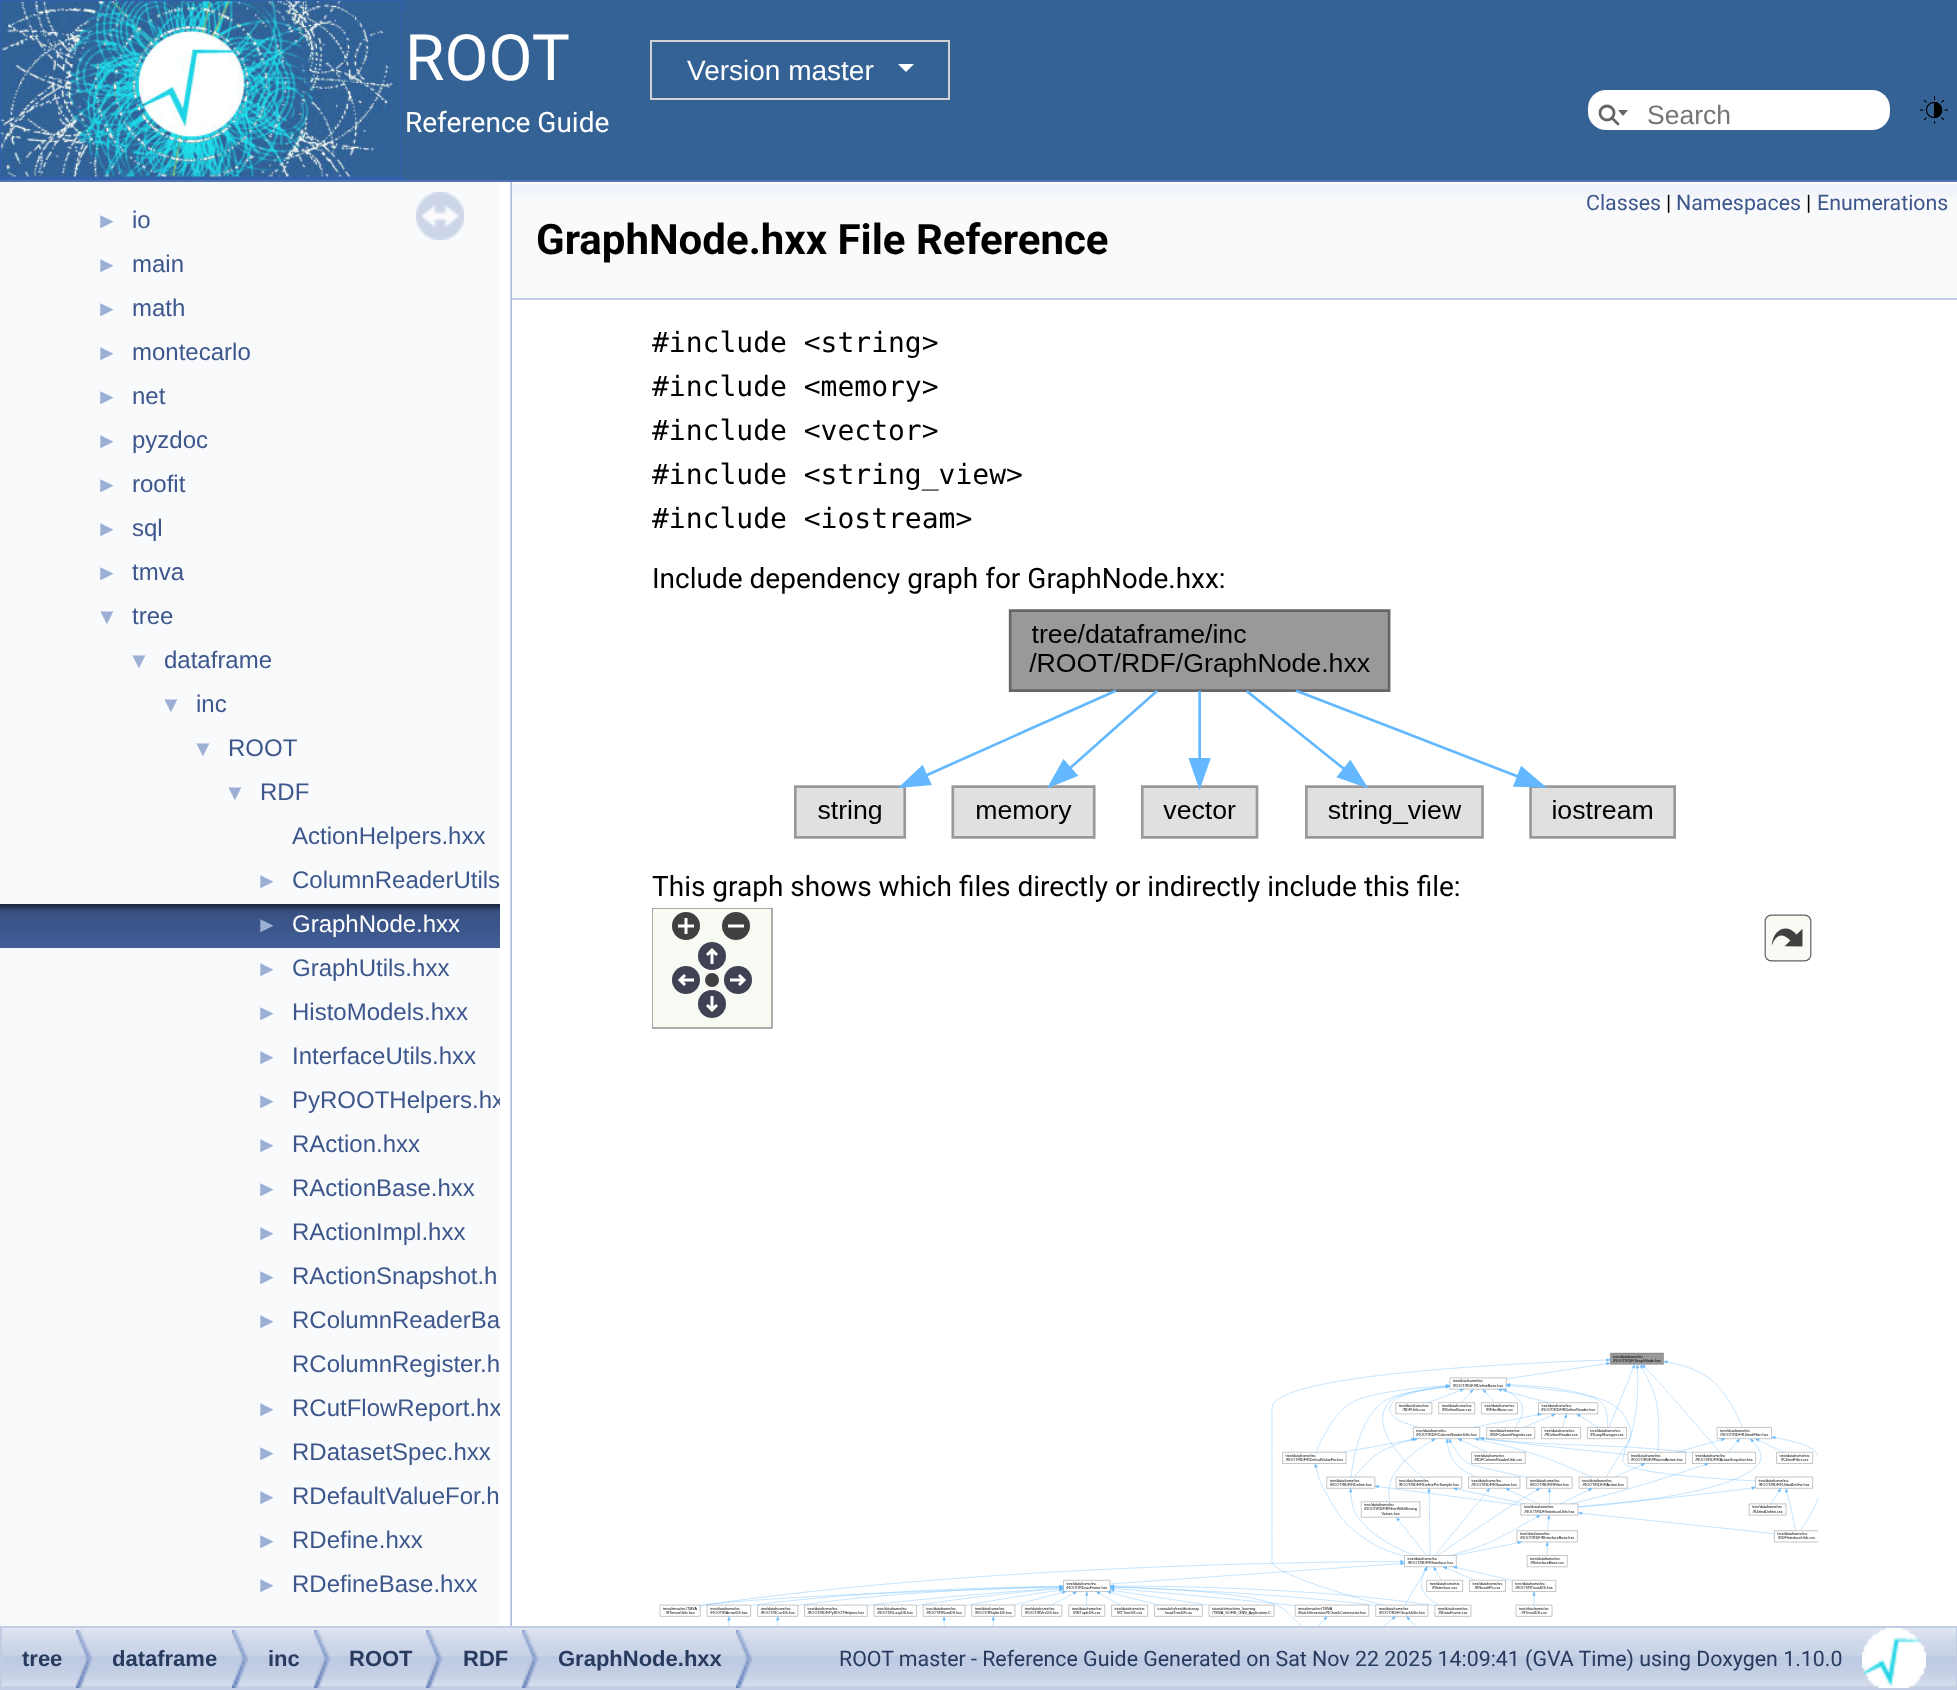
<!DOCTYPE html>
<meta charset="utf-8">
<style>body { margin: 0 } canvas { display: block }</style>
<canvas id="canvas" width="1957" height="1690"></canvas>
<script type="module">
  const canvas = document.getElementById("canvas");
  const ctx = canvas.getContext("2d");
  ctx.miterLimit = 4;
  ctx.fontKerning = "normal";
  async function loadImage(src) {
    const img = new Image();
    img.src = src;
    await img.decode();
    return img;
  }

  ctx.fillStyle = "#ffffff";
  ctx.fillRect(0, 0, 1957, 1690);
  ctx.fillStyle = "#5373b4";
  ctx.fillRect(0, 180, 1957, 2);
  ctx.fillStyle = "#346295";
  ctx.fillRect(406, 0, 1551, 180);
  ctx.drawImage(await loadImage("img1.png"), 0, 0, 406, 180);
  ctx.font = "64px Roboto";
  ctx.fillStyle = "#ffffff";
  ctx.fillText("ROOT", 405, 80);
  ctx.strokeStyle = "#d3d3d3";
  ctx.lineWidth = 2;
  ctx.strokeRect(651, 41, 298, 58);
  ctx.font = "28px Liberation Sans";
  ctx.fillText("Version master", 687, 80);
  ctx.beginPath();
  ctx.moveTo(898, 64);
  ctx.lineTo(914, 64);
  ctx.lineTo(906, 72);
  ctx.closePath();
  ctx.fill();
  ctx.font = "28px Roboto";
  ctx.fillText("Reference Guide", 405, 132);
  ctx.beginPath();
  ctx.roundRect(1588, 90, 302, 40, 18);
  ctx.fill();
  ctx.beginPath();
  ctx.arc(1607, 113, 7, 0, Math.PI * 2);
  ctx.strokeStyle = "#656565";
  ctx.lineWidth = 2.8;
  ctx.stroke();
  ctx.fillStyle = "#656565";
  ctx.beginPath();
  ctx.moveTo(1618, 110);
  ctx.lineTo(1623, 116);
  ctx.lineTo(1628, 110);
  ctx.closePath();
  ctx.fill();
  ctx.beginPath();
  ctx.moveTo(1612, 118);
  ctx.lineTo(1618, 124);
  ctx.lineCap = "round";
  ctx.stroke();
  ctx.font = "26.5px Liberation Sans";
  ctx.fillStyle = "#757575";
  ctx.fillText("Search", 1647, 124);
  ctx.drawImage(await loadImage("img2.png"), 1920, 96, 28, 28);
  ctx.fillStyle = "#f9fafc";
  ctx.fillRect(0, 182, 500, 1444);
  ctx.drawImage(await loadImage("img3.png"), 416, 192, 48, 48);
  ctx.font = "22px Liberation Sans";
  ctx.fillStyle = "#9cafd4";
  ctx.fillText("►", 96, 228);
  ctx.font = "24px Liberation Sans";
  ctx.fillStyle = "#3d578c";
  ctx.fillText("io", 132, 228);
  ctx.font = "22px Liberation Sans";
  ctx.fillStyle = "#9cafd4";
  ctx.fillText("►", 96, 272);
  ctx.font = "24px Liberation Sans";
  ctx.fillStyle = "#3d578c";
  ctx.fillText("main", 132, 272);
  ctx.font = "22px Liberation Sans";
  ctx.fillStyle = "#9cafd4";
  ctx.fillText("►", 96, 316);
  ctx.font = "24px Liberation Sans";
  ctx.fillStyle = "#3d578c";
  ctx.fillText("math", 132, 316);
  ctx.font = "22px Liberation Sans";
  ctx.fillStyle = "#9cafd4";
  ctx.fillText("►", 96, 360);
  ctx.font = "24px Liberation Sans";
  ctx.fillStyle = "#3d578c";
  ctx.fillText("montecarlo", 132, 360);
  ctx.font = "22px Liberation Sans";
  ctx.fillStyle = "#9cafd4";
  ctx.fillText("►", 96, 404);
  ctx.font = "24px Liberation Sans";
  ctx.fillStyle = "#3d578c";
  ctx.fillText("net", 132, 404);
  ctx.font = "22px Liberation Sans";
  ctx.fillStyle = "#9cafd4";
  ctx.fillText("►", 96, 448);
  ctx.font = "24px Liberation Sans";
  ctx.fillStyle = "#3d578c";
  ctx.fillText("pyzdoc", 132, 448);
  ctx.font = "22px Liberation Sans";
  ctx.fillStyle = "#9cafd4";
  ctx.fillText("►", 96, 492);
  ctx.font = "24px Liberation Sans";
  ctx.fillStyle = "#3d578c";
  ctx.fillText("roofit", 132, 492);
  ctx.font = "22px Liberation Sans";
  ctx.fillStyle = "#9cafd4";
  ctx.fillText("►", 96, 536);
  ctx.font = "24px Liberation Sans";
  ctx.fillStyle = "#3d578c";
  ctx.fillText("sql", 132, 536);
  ctx.font = "22px Liberation Sans";
  ctx.fillStyle = "#9cafd4";
  ctx.fillText("►", 96, 580);
  ctx.font = "24px Liberation Sans";
  ctx.fillStyle = "#3d578c";
  ctx.fillText("tmva", 132, 580);
  ctx.font = "22px Liberation Sans";
  ctx.fillStyle = "#9cafd4";
  ctx.fillText("▼", 96, 624);
  ctx.font = "24px Liberation Sans";
  ctx.fillStyle = "#3d578c";
  ctx.fillText("tree", 132, 624);
  ctx.font = "22px Liberation Sans";
  ctx.fillStyle = "#9cafd4";
  ctx.fillText("▼", 128, 668);
  ctx.font = "24px Liberation Sans";
  ctx.fillStyle = "#3d578c";
  ctx.fillText("dataframe", 164, 668);
  ctx.font = "22px Liberation Sans";
  ctx.fillStyle = "#9cafd4";
  ctx.fillText("▼", 160, 712);
  ctx.font = "24px Liberation Sans";
  ctx.fillStyle = "#3d578c";
  ctx.fillText("inc", 196, 712);
  ctx.font = "22px Liberation Sans";
  ctx.fillStyle = "#9cafd4";
  ctx.fillText("▼", 192, 756);
  ctx.font = "24px Liberation Sans";
  ctx.fillStyle = "#3d578c";
  ctx.fillText("ROOT", 228, 756);
  ctx.font = "22px Liberation Sans";
  ctx.fillStyle = "#9cafd4";
  ctx.fillText("▼", 224, 800);
  ctx.font = "24px Liberation Sans";
  ctx.fillStyle = "#3d578c";
  ctx.fillText("RDF", 260, 800);
  ctx.fillText("ActionHelpers.hxx", 292, 844);
  ctx.font = "22px Liberation Sans";
  ctx.fillStyle = "#9cafd4";
  ctx.fillText("►", 256, 888);
  ctx.font = "24px Liberation Sans";
  ctx.fillStyle = "#3d578c";
  ctx.fillText("ColumnReaderUtils", 292, 888);
  ctx.drawImage(await loadImage("img4.png"), 0, 904, 500, 44);
  ctx.font = "22px Liberation Sans";
  ctx.fillStyle = "#9cafd4";
  ctx.fillText("►", 256, 932);
  ctx.font = "24px Liberation Sans";
  ctx.fillStyle = "#ffffff";
  ctx.fillText("GraphNode.hxx", 292, 932);
  ctx.font = "22px Liberation Sans";
  ctx.fillStyle = "#9cafd4";
  ctx.fillText("►", 256, 976);
  ctx.font = "24px Liberation Sans";
  ctx.fillStyle = "#3d578c";
  ctx.fillText("GraphUtils.hxx", 292, 976);
  ctx.font = "22px Liberation Sans";
  ctx.fillStyle = "#9cafd4";
  ctx.fillText("►", 256, 1020);
  ctx.font = "24px Liberation Sans";
  ctx.fillStyle = "#3d578c";
  ctx.fillText("HistoModels.hxx", 292, 1020);
  ctx.font = "22px Liberation Sans";
  ctx.fillStyle = "#9cafd4";
  ctx.fillText("►", 256, 1064);
  ctx.font = "24px Liberation Sans";
  ctx.fillStyle = "#3d578c";
  ctx.fillText("InterfaceUtils.hxx", 292, 1064);
  ctx.font = "22px Liberation Sans";
  ctx.fillStyle = "#9cafd4";
  ctx.fillText("►", 256, 1108);
  ctx.save();
  ctx.beginPath();
  ctx.rect(0, 182, 500, 1444);
  ctx.clip();
  ctx.font = "24px Liberation Sans";
  ctx.fillStyle = "#3d578c";
  ctx.fillText("PyROOTHelpers.hx", 292, 1108);
  ctx.restore();
  ctx.fillText("►", 256, 1152);
  ctx.font = "24px Liberation Sans";
  ctx.fillStyle = "#3d578c";
  ctx.fillText("RAction.hxx", 292, 1152);
  ctx.font = "22px Liberation Sans";
  ctx.fillStyle = "#9cafd4";
  ctx.fillText("►", 256, 1196);
  ctx.font = "24px Liberation Sans";
  ctx.fillStyle = "#3d578c";
  ctx.fillText("RActionBase.hxx", 292, 1196);
  ctx.font = "22px Liberation Sans";
  ctx.fillStyle = "#9cafd4";
  ctx.fillText("►", 256, 1240);
  ctx.font = "24px Liberation Sans";
  ctx.fillStyle = "#3d578c";
  ctx.fillText("RActionImpl.hxx", 292, 1240);
  ctx.font = "22px Liberation Sans";
  ctx.fillStyle = "#9cafd4";
  ctx.fillText("►", 256, 1284);
  ctx.font = "24px Liberation Sans";
  ctx.fillStyle = "#3d578c";
  ctx.fillText("RActionSnapshot.h", 292, 1284);
  ctx.font = "22px Liberation Sans";
  ctx.fillStyle = "#9cafd4";
  ctx.fillText("►", 256, 1328);
  ctx.font = "24px Liberation Sans";
  ctx.fillStyle = "#3d578c";
  ctx.fillText("RColumnReaderBa", 292, 1328);
  ctx.fillText("RColumnRegister.h", 292, 1372);
  ctx.font = "22px Liberation Sans";
  ctx.fillStyle = "#9cafd4";
  ctx.fillText("►", 256, 1416);
  ctx.save();
  ctx.beginPath();
  ctx.rect(0, 182, 500, 1444);
  ctx.clip();
  ctx.font = "24px Liberation Sans";
  ctx.fillStyle = "#3d578c";
  ctx.fillText("RCutFlowReport.hx", 292, 1416);
  ctx.restore();
  ctx.fillText("►", 256, 1460);
  ctx.font = "24px Liberation Sans";
  ctx.fillStyle = "#3d578c";
  ctx.fillText("RDatasetSpec.hxx", 292, 1460);
  ctx.font = "22px Liberation Sans";
  ctx.fillStyle = "#9cafd4";
  ctx.fillText("►", 256, 1504);
  ctx.font = "24px Liberation Sans";
  ctx.fillStyle = "#3d578c";
  ctx.fillText("RDefaultValueFor.h", 292, 1504);
  ctx.font = "22px Liberation Sans";
  ctx.fillStyle = "#9cafd4";
  ctx.fillText("►", 256, 1548);
  ctx.font = "24px Liberation Sans";
  ctx.fillStyle = "#3d578c";
  ctx.fillText("RDefine.hxx", 292, 1548);
  ctx.font = "22px Liberation Sans";
  ctx.fillStyle = "#9cafd4";
  ctx.fillText("►", 256, 1592);
  ctx.font = "24px Liberation Sans";
  ctx.fillStyle = "#3d578c";
  ctx.fillText("RDefineBase.hxx", 292, 1592);
  ctx.drawImage(await loadImage("img5.png"), 510, 182, 2, 1444);
  ctx.fillStyle = "#f9fafc";
  ctx.fillRect(512, 198, 1445, 100);
  ctx.drawImage(await loadImage("img6.png"), 512, 182, 1445, 16);
  ctx.fillStyle = "#c4cfe5";
  ctx.fillRect(512, 298, 1445, 2);
  ctx.font = "21.35px Roboto";
  ctx.fillStyle = "#3d578c";
  ctx.fillText("Classes", 1586, 210);
  ctx.fillStyle = "#000000";
  ctx.fillText("|", 1666, 210);
  ctx.fillStyle = "#3d578c";
  ctx.fillText("Namespaces", 1676, 210);
  ctx.fillStyle = "#000000";
  ctx.fillText("|", 1806, 210);
  ctx.fillStyle = "#3d578c";
  ctx.fillText("Enumerations", 1817, 210);
  ctx.font = "bold 42px Roboto";
  ctx.fillStyle = "#000000";
  ctx.fillText("GraphNode.hxx File Reference", 536, 254);
  ctx.font = "28px DejaVu Sans Mono";
  ctx.fillText("#include <string>", 652, 352);
  ctx.fillText("#include <memory>", 652, 396);
  ctx.fillText("#include <vector>", 652, 440);
  ctx.fillText("#include <string_view>", 652, 484);
  ctx.fillText("#include <iostream>", 652, 528);
  ctx.font = "28px Roboto";
  ctx.fillText("Include dependency graph for GraphNode.hxx:", 652, 588);
  ctx.drawImage(await loadImage("img7.png"), 794, 609, 882, 230);
  ctx.fillText("This graph shows which files directly or indirectly include this file:", 652, 896);
  ctx.drawImage(await loadImage("img8.png"), 652, 908, 1166, 718);
  ctx.drawImage(await loadImage("img9.png"), 2, 1628, 1954, 60);
  ctx.strokeStyle = "#c2cde4";
  ctx.lineWidth = 2;
  ctx.strokeRect(1, 1627, 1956, 62);
  ctx.drawImage(await loadImage("img10.png"), 76, 1630, 16, 58);
  ctx.font = "bold 22px Liberation Sans";
  ctx.fillStyle = "#283a5d";
  ctx.fillText("tree", 22, 1666);
  ctx.drawImage(await loadImage("img10.png"), 232, 1630, 16, 58);
  ctx.fillText("dataframe", 112, 1666);
  ctx.drawImage(await loadImage("img10.png"), 314, 1630, 16, 58);
  ctx.fillText("inc", 268, 1666);
  ctx.drawImage(await loadImage("img10.png"), 426, 1630, 16, 58);
  ctx.fillText("ROOT", 349, 1666);
  ctx.drawImage(await loadImage("img10.png"), 522, 1630, 16, 58);
  ctx.fillText("RDF", 463, 1666);
  ctx.drawImage(await loadImage("img10.png"), 736, 1630, 16, 58);
  ctx.fillText("GraphNode.hxx", 558, 1666);
  ctx.font = "21.35px Roboto";
  ctx.fillText("ROOT master - Reference Guide Generated on Sat Nov 22 2025 14:09:41 (GVA Time) using Doxygen 1.10.0", 839, 1666);
  ctx.drawImage(await loadImage("img11.png"), 1862, 1628, 64, 60);
</script>
